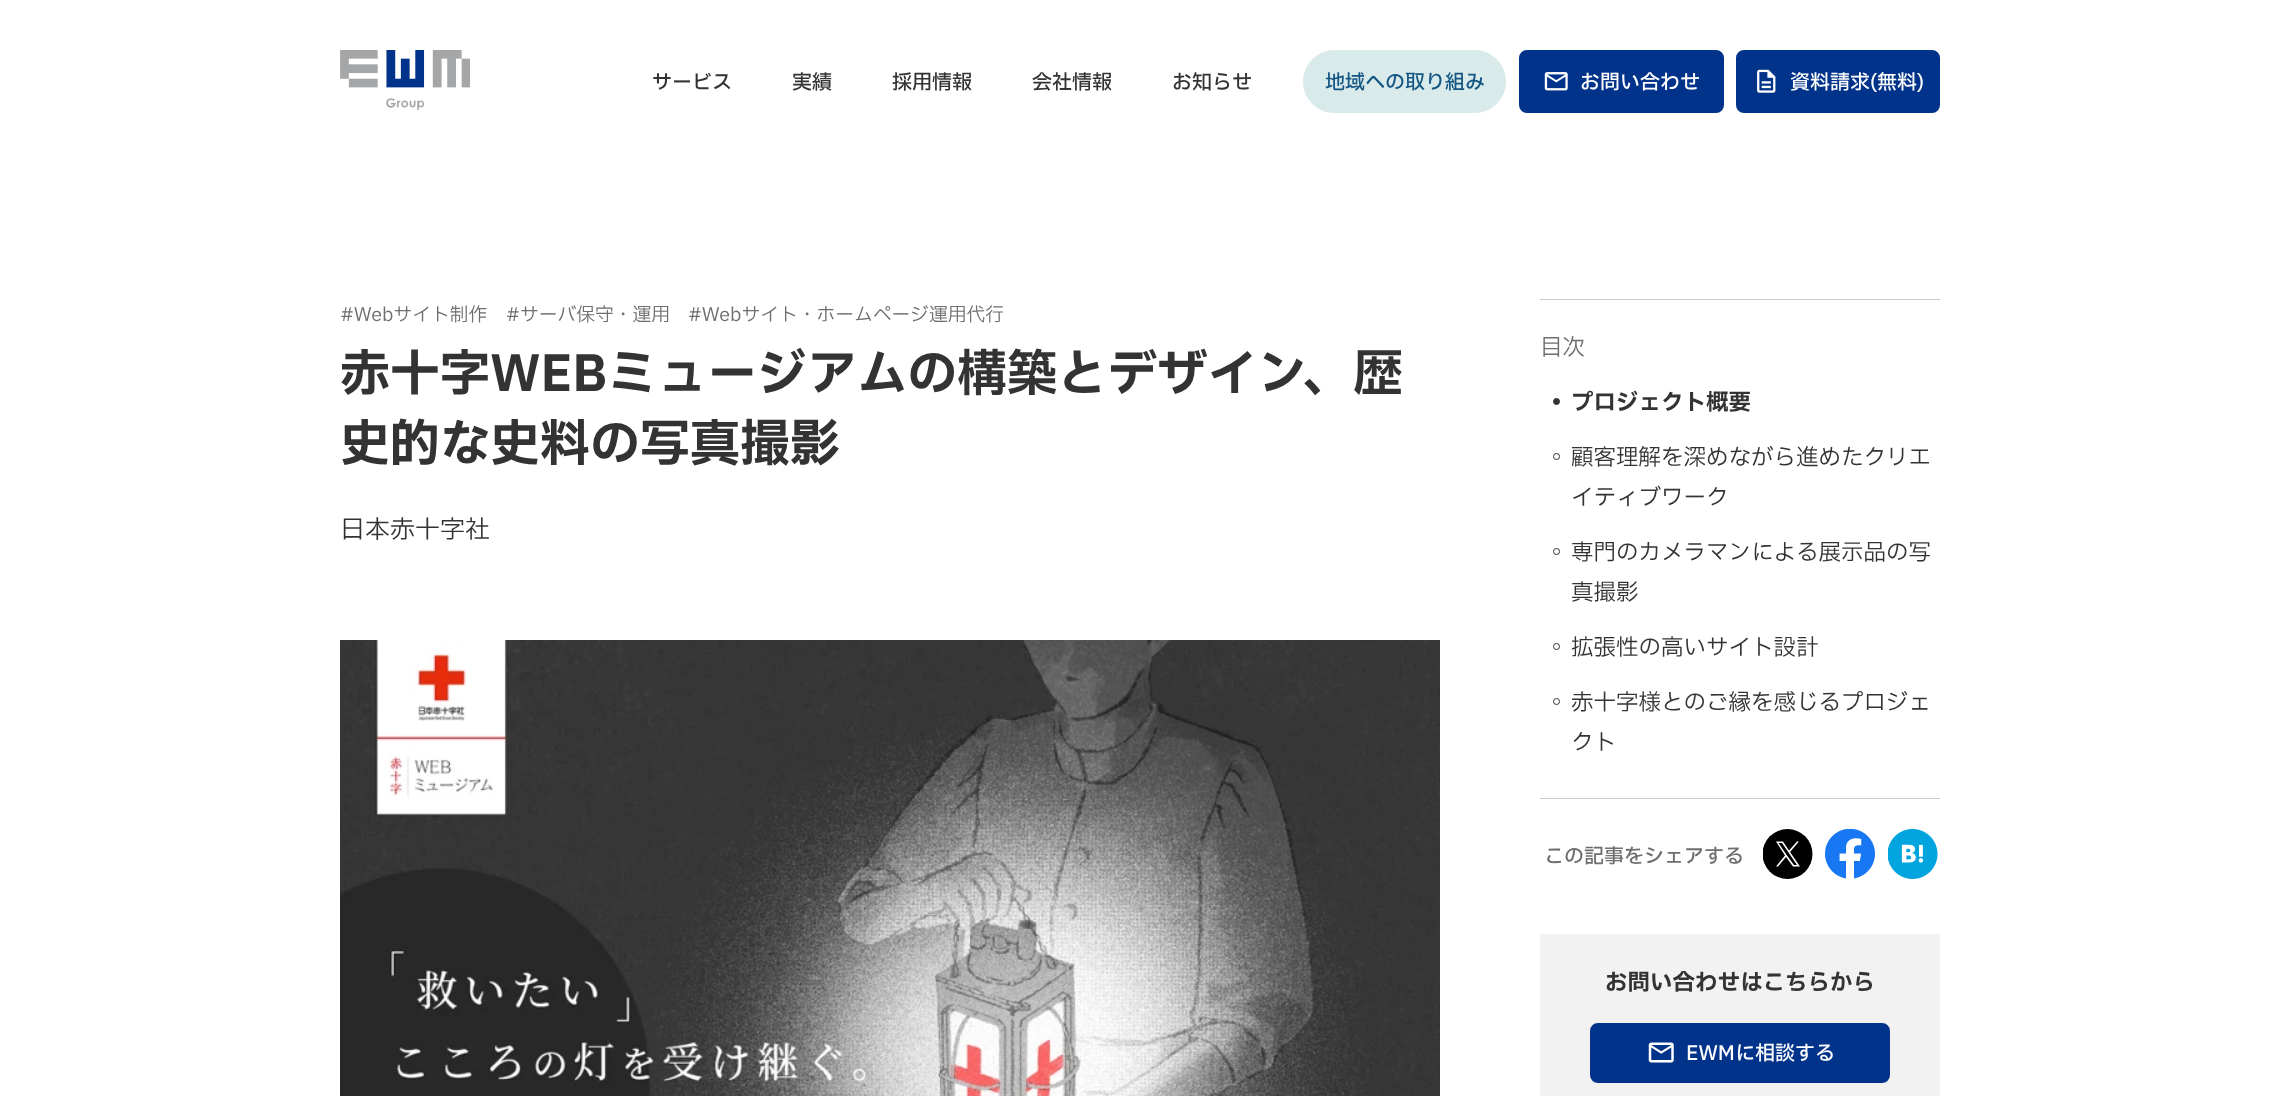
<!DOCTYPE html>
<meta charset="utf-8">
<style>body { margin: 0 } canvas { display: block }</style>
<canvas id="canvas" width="2279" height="1096"></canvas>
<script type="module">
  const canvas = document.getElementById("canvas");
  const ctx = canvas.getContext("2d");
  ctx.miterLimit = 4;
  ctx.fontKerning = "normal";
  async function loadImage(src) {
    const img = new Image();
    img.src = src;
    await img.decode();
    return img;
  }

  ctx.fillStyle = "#ffffff";
  ctx.fillRect(0, 0, 2279, 1096);
  ctx.drawImage(await loadImage("img1.png"), 340, 50, 130, 60);
  ctx.font = "500 20px IBM Plex Sans JP";
  ctx.fillStyle = "#333333";
  ctx.fillText("サービス", 652, 89);
  ctx.fillText("実績", 792, 89);
  ctx.fillText("採用情報", 892, 89);
  ctx.fillText("会社情報", 1032, 89);
  ctx.fillText("お知らせ", 1172, 89);
  ctx.fillStyle = "#d8eae9";
  ctx.beginPath();
  ctx.roundRect(1304.5, 51.5, 200, 60, 30);
  ctx.fill();
  ctx.strokeStyle = "#d8eae9";
  ctx.lineWidth = 3;
  ctx.stroke();
  ctx.fillStyle = "#135583";
  ctx.fillText("地域への取り組み", 1325, 89);
  ctx.fillStyle = "#003389";
  ctx.beginPath();
  ctx.roundRect(1520.5, 51.5, 202, 60, 6.5);
  ctx.fill();
  ctx.strokeStyle = "#003389";
  ctx.stroke();
  ctx.drawImage(await loadImage("img2.png"), 1544, 72, 24, 19);
  ctx.fillStyle = "#ffffff";
  ctx.fillText("お問い合わせ", 1580, 89);
  ctx.fillStyle = "#003389";
  ctx.beginPath();
  ctx.roundRect(1737.5, 51.5, 201, 60, 6.5);
  ctx.fill();
  ctx.stroke();
  ctx.drawImage(await loadImage("img3.png"), 1757, 69, 19, 24);
  ctx.fillStyle = "#ffffff";
  ctx.fillText("資料請求(無料)", 1790, 89);
  ctx.font = "18.75px IBM Plex Sans JP";
  ctx.fillStyle = "#6e6e6e";
  ctx.fillText("#Webサイト制作", 340, 321);
  ctx.fillText("#サーバ保守・運用", 506, 321);
  ctx.fillText("#Webサイト・ホームページ運用代行", 688, 321);
  ctx.font = "bold 50px IBM Plex Sans JP";
  ctx.fillStyle = "#333333";
  ctx.fillText("赤十字WEBミュージアムの構築とデザイン、歴", 340, 391);
  ctx.fillText("史的な史料の写真撮影", 340, 461);
  ctx.font = "25px IBM Plex Sans JP";
  ctx.fillText("日本赤十字社", 340, 538);
  ctx.fillStyle = "#cccccc";
  ctx.fillRect(1540, 299, 400, 1);
  ctx.fillRect(1540, 798, 400, 1);
  ctx.font = "22.5px IBM Plex Sans JP";
  ctx.fillStyle = "#6e6e6e";
  ctx.fillText("目次", 1540, 355);
  ctx.fillStyle = "#333333";
  ctx.beginPath();
  ctx.arc(1556.5, 401.5, 3, 0, Math.PI * 2);
  ctx.fill();
  ctx.strokeStyle = "#333333";
  ctx.lineWidth = 1;
  ctx.stroke();
  ctx.font = "bold 22.5px IBM Plex Sans JP";
  ctx.fillText("プロジェクト概要", 1571, 410);
  ctx.beginPath();
  ctx.arc(1556.5, 456.5, 3, 0, Math.PI * 2);
  ctx.stroke();
  ctx.font = "22.5px IBM Plex Sans JP";
  ctx.fillText("顧客理解を深めながら進めたクリエ", 1571, 465);
  ctx.fillText("イティブワーク", 1571, 505);
  ctx.beginPath();
  ctx.arc(1556.5, 551.5, 3, 0, Math.PI * 2);
  ctx.stroke();
  ctx.fillText("専門のカメラマンによる展示品の写", 1571, 560);
  ctx.fillText("真撮影", 1571, 600);
  ctx.beginPath();
  ctx.arc(1556.5, 646.5, 3, 0, Math.PI * 2);
  ctx.stroke();
  ctx.fillText("拡張性の高いサイト設計", 1571, 655);
  ctx.beginPath();
  ctx.arc(1556.5, 701.5, 3, 0, Math.PI * 2);
  ctx.stroke();
  ctx.fillText("赤十字様とのご縁を感じるプロジェ", 1571, 710);
  ctx.fillText("クト", 1571, 750);
  ctx.font = "500 20px IBM Plex Sans JP";
  ctx.fillStyle = "#6e6e6e";
  ctx.fillText("この記事をシェアする", 1544, 863);
  ctx.save();
  ctx.beginPath();
  ctx.rect(1763, 829, 50, 50);
  ctx.clip();
  ctx.fillStyle = "#000000";
  ctx.beginPath();
  ctx.arc(1787.5, 854, 25, 0, Math.PI * 2);
  ctx.fill();
  ctx.restore();
  ctx.fillStyle = "#ffffff";
  ctx.beginPath();
  ctx.moveTo(1790, 852);
  ctx.lineTo(1799, 841.5);
  ctx.lineTo(1797, 841.5);
  ctx.lineTo(1789, 850.5);
  ctx.lineTo(1783, 841.5);
  ctx.lineTo(1776, 841.5);
  ctx.lineTo(1785, 855.5);
  ctx.lineTo(1776, 866.5);
  ctx.lineTo(1778, 866.5);
  ctx.lineTo(1786, 857);
  ctx.lineTo(1793, 866.5);
  ctx.lineTo(1800, 866.5);
  ctx.closePath();
  ctx.moveTo(1787, 855.5);
  ctx.lineTo(1778.5, 843);
  ctx.lineTo(1782, 843);
  ctx.lineTo(1797, 865);
  ctx.lineTo(1794, 865);
  ctx.closePath();
  ctx.fill();
  ctx.drawImage(await loadImage("img4.png"), 1825, 829, 50, 50);
  ctx.drawImage(await loadImage("img5.png"), 1888, 829, 50, 50);
  ctx.fillStyle = "#f2f2f2";
  ctx.fillRect(1540, 934, 400, 162);
  ctx.font = "bold 22.5px IBM Plex Sans JP";
  ctx.fillStyle = "#333333";
  ctx.fillText("お問い合わせはこちらから", 1605, 990);
  ctx.fillStyle = "#003389";
  ctx.beginPath();
  ctx.roundRect(1591.5, 1024.5, 297, 57, 6.5);
  ctx.fill();
  ctx.strokeStyle = "#003389";
  ctx.lineWidth = 3;
  ctx.stroke();
  ctx.drawImage(await loadImage("img6.png"), 1648, 1042, 26, 21);
  ctx.font = "500 20px IBM Plex Sans JP";
  ctx.fillStyle = "#ffffff";
  ctx.fillText("EWMに相談する", 1686, 1060);
  ctx.drawImage(await loadImage("img7.png"), 340, 640, 1100, 456);
</script>
